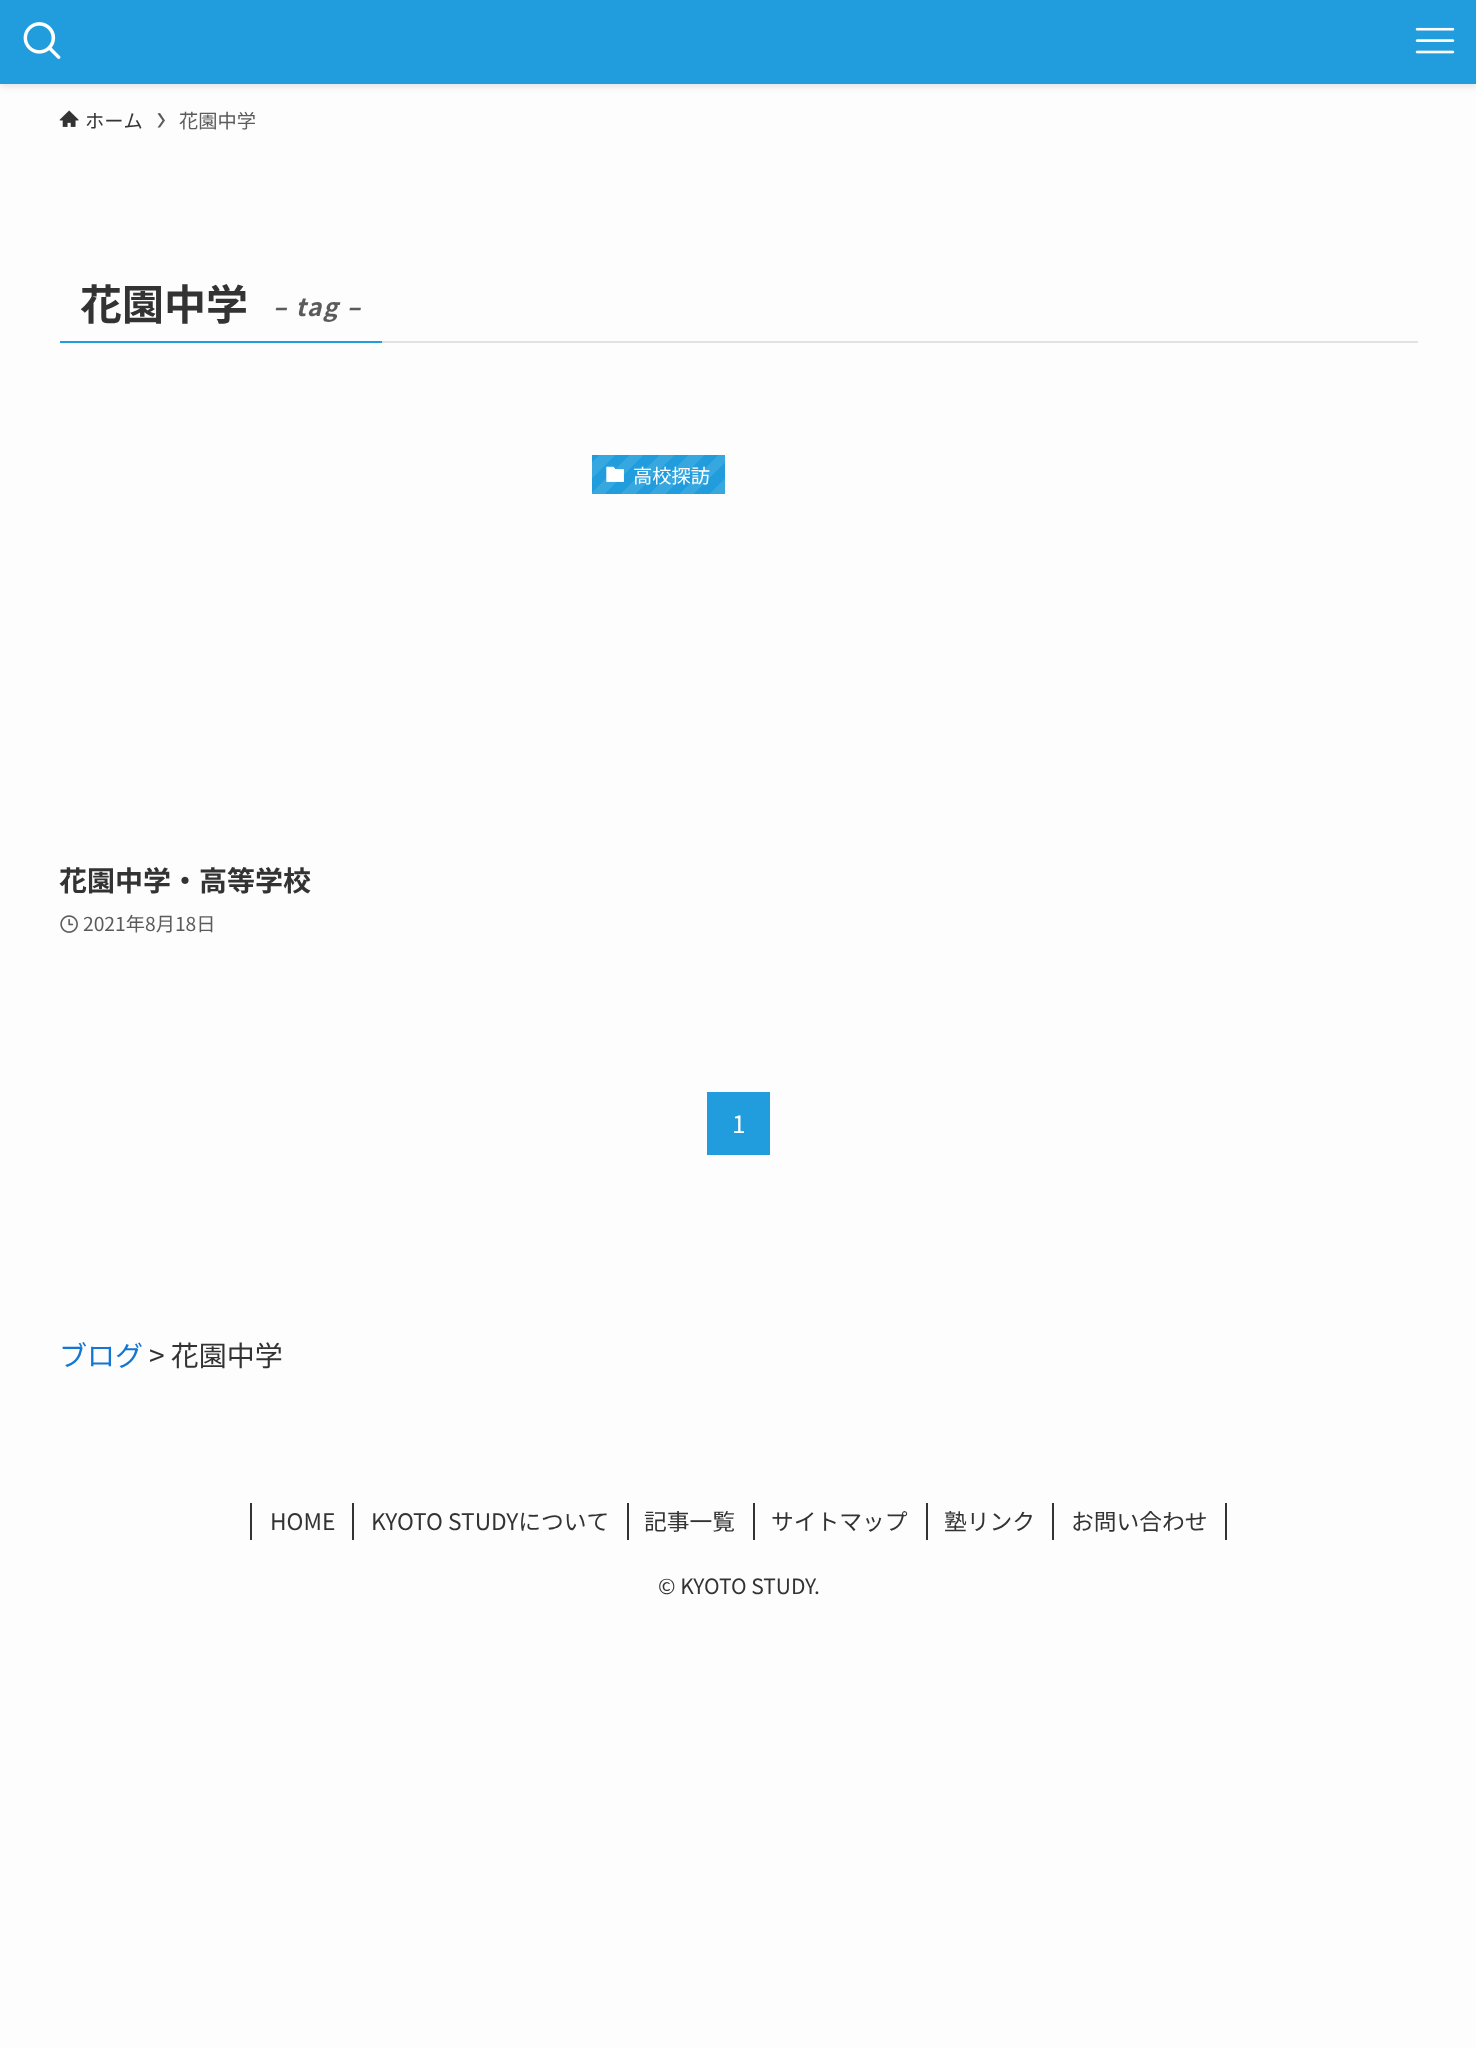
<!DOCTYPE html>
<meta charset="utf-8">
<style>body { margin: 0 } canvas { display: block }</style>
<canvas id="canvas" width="1476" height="2048"></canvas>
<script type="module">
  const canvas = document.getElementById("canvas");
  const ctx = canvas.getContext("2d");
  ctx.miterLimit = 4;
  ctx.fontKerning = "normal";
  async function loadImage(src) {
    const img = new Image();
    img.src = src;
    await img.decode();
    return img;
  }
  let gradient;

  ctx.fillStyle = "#fdfdfd";
  ctx.fillRect(0, 0, 1476, 2048);
  ctx.fillStyle = "rgba(0, 0, 0, 0.12)";
  ctx.filter = "blur(3.5px)";
  ctx.beginPath();
  ctx.rect(0, 2, 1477, 84);
  ctx.fill();
  ctx.filter = "none";
  ctx.fillStyle = "#219ddd";
  ctx.fillRect(0, 0, 1476, 84);
  ctx.drawImage(await loadImage("img1.png"), 23, 22, 38, 37);
  ctx.drawImage(await loadImage("img2.png"), 1415, 27, 40, 27);
  ctx.drawImage(await loadImage("img3.png"), 59, 110, 20, 17);
  ctx.font = "19.25px Noto Sans JP";
  ctx.fillStyle = "#333333";
  ctx.fillText("ホーム", 85, 128);
  ctx.fillStyle = "#5b5b5b";
  ctx.beginPath();
  ctx.moveTo(160, 113);
  ctx.lineTo(157.5, 113.5);
  ctx.lineTo(162.5, 120.5);
  ctx.lineTo(157.5, 127.5);
  ctx.lineTo(160, 127.5);
  ctx.lineTo(165, 120.5);
  ctx.closePath();
  ctx.fill();
  ctx.fillText("花園中学", 179, 128);
  ctx.fillStyle = "#e2e2e2";
  ctx.fillRect(382, 341, 1036, 2);
  ctx.fillStyle = "#219ddd";
  ctx.fillRect(60, 341, 322, 2);
  ctx.font = "bold 42px Noto Sans JP";
  ctx.fillStyle = "#333333";
  ctx.fillText("花園中学", 80, 320);
  ctx.letterSpacing = "1.75px";
  ctx.font = "italic bold 24.5px Noto Sans JP";
  ctx.fillStyle = "#5b5b5b";
  ctx.fillText("– tag –", 273, 316);
  gradient = ctx.createLinearGradient(701, 517, 612, 428);
  gradient.addColorStop(0, "#37a7e0");
  gradient.addColorStop(0.08, "#37a7e0");
  gradient.addColorStop(0.08, "#219ddd");
  gradient.addColorStop(0.17, "#219ddd");
  gradient.addColorStop(0.17, "#37a7e0");
  gradient.addColorStop(0.25, "#37a7e0");
  gradient.addColorStop(0.25, "#219ddd");
  gradient.addColorStop(0.33, "#219ddd");
  gradient.addColorStop(0.33, "#37a7e0");
  gradient.addColorStop(0.42, "#37a7e0");
  gradient.addColorStop(0.42, "#219ddd");
  gradient.addColorStop(0.5, "#219ddd");
  gradient.addColorStop(0.5, "#37a7e0");
  gradient.addColorStop(0.58, "#37a7e0");
  gradient.addColorStop(0.58, "#219ddd");
  gradient.addColorStop(0.67, "#219ddd");
  gradient.addColorStop(0.67, "#37a7e0");
  gradient.addColorStop(0.75, "#37a7e0");
  gradient.addColorStop(0.75, "#219ddd");
  gradient.addColorStop(0.83, "#219ddd");
  gradient.addColorStop(0.83, "#37a7e0");
  gradient.addColorStop(0.92, "#37a7e0");
  gradient.addColorStop(0.92, "#219ddd");
  gradient.addColorStop(1, "#219ddd");
  ctx.fillStyle = gradient;
  ctx.fillRect(592, 455, 133, 39);
  ctx.drawImage(await loadImage("img4.png"), 606, 466, 18, 16);
  ctx.letterSpacing = "0px";
  ctx.font = "19.25px Noto Sans JP";
  ctx.fillStyle = "#ffffff";
  ctx.fillText("高校探訪", 633, 483);
  ctx.font = "bold 28px Noto Sans JP";
  ctx.fillStyle = "#333333";
  ctx.fillText("花園中学・高等学校", 59, 891);
  ctx.drawImage(await loadImage("img5.png"), 60, 915, 18, 18);
  ctx.font = "19.25px Noto Sans JP";
  ctx.fillStyle = "#5b5b5b";
  ctx.fillText("2021年8月18日", 83, 931);
  ctx.fillStyle = "#219ddd";
  ctx.fillRect(707, 1092, 63, 63);
  ctx.font = "24.5px Noto Sans JP";
  ctx.fillStyle = "#ffffff";
  ctx.fillText("1", 732, 1133);
  ctx.font = "28px Noto Sans JP";
  ctx.fillStyle = "#1176d4";
  ctx.fillText("ブログ", 59, 1366);
  ctx.fillStyle = "#333333";
  ctx.fillText("> 花園中学", 149, 1366);
  ctx.fillRect(352, 1503, 2, 37);
  ctx.fillRect(250, 1503, 2, 37);
  ctx.font = "22.75px Noto Sans JP";
  ctx.fillText("HOME", 270, 1530);
  ctx.fillRect(627, 1503, 2, 37);
  ctx.fillText("KYOTO STUDYについて", 371, 1530);
  ctx.fillRect(753, 1503, 2, 37);
  ctx.fillText("記事一覧", 644, 1530);
  ctx.fillRect(926, 1503, 2, 37);
  ctx.fillText("サイトマップ", 771, 1530);
  ctx.fillRect(1052, 1503, 2, 37);
  ctx.fillText("塾リンク", 944, 1530);
  ctx.fillRect(1225, 1503, 2, 37);
  ctx.fillText("お問い合わせ", 1071, 1530);
  ctx.font = "21px Noto Sans JP";
  ctx.fillText("© KYOTO STUDY.", 658, 1594);
</script>
